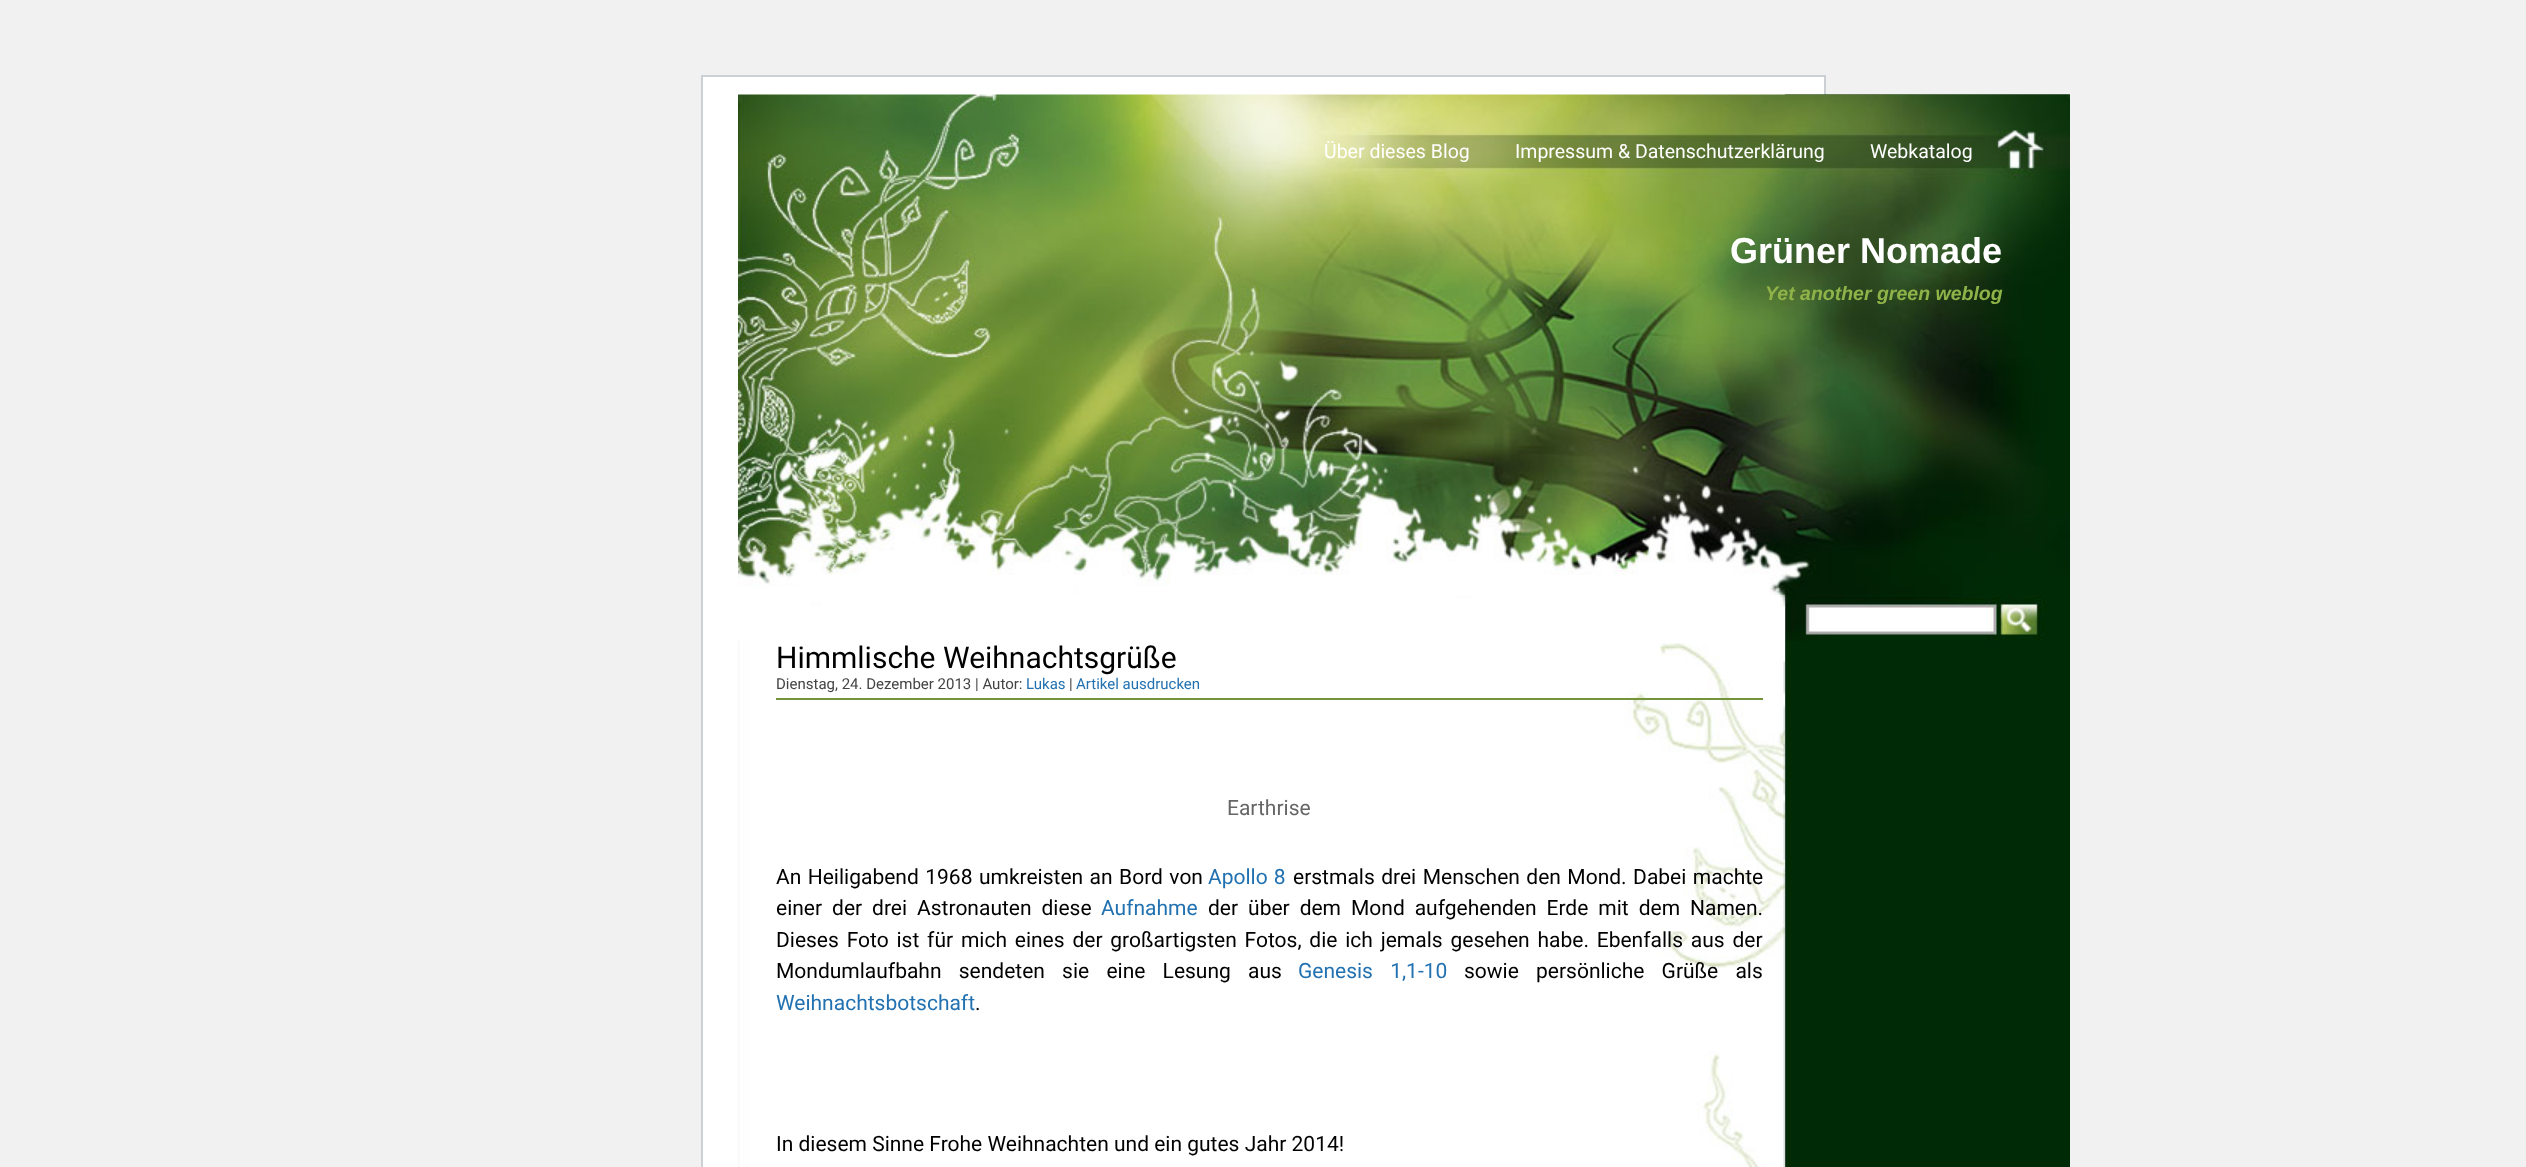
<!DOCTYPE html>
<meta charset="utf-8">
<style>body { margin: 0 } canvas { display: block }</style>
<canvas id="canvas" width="2526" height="1167"></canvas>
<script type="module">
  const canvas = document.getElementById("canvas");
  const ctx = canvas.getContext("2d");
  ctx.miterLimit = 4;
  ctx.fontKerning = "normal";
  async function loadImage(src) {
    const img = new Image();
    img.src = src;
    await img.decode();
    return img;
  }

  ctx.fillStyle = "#f1f1f1";
  ctx.fillRect(0, 0, 2526, 1167);
  ctx.fillStyle = "#ffffff";
  ctx.beginPath();
  ctx.rect(702, 76, 1123, 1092);
  ctx.fill();
  ctx.strokeStyle = "#ccd0d4";
  ctx.lineWidth = 2;
  ctx.stroke();
  ctx.drawImage(await loadImage("img1.png"), 738, 94, 1332, 1073);
  ctx.drawImage(await loadImage("img2.png"), 738, 94, 1332, 502);
  ctx.font = "19.5px Roboto";
  ctx.fillText("Über dieses Blog", 1324, 158);
  ctx.fillText("Impressum & Datenschutzerklärung", 1515, 158);
  ctx.fillText("Webkatalog", 1870, 158);
  ctx.font = "bold 36px Liberation Sans";
  ctx.fillText("Grüner Nomade", 1730, 263);
  ctx.font = "italic bold 19.5px Liberation Sans";
  ctx.fillStyle = "#90b349";
  ctx.fillText("Yet another green weblog", 1765, 300);
  ctx.drawImage(await loadImage("img3.png"), 738, 595, 1308, 46);
  ctx.drawImage(await loadImage("img4.png"), 1625, 595, 160, 572);
  ctx.font = "30px Roboto";
  ctx.fillStyle = "#000000";
  ctx.fillText("Himmlische Weihnachtsgrüße", 776, 668);
  ctx.fillStyle = "#73943b";
  ctx.fillRect(776, 698, 987, 2);
  ctx.font = "15px Roboto";
  ctx.fillStyle = "#444444";
  ctx.fillText("Dienstag, 24. Dezember 2013 | Autor:", 776, 689);
  ctx.fillStyle = "#2271b1";
  ctx.fillText("Lukas", 1026, 689);
  ctx.fillStyle = "#444444";
  ctx.fillText("|", 1069, 689);
  ctx.fillStyle = "#2271b1";
  ctx.fillText("Artikel ausdrucken", 1076, 689);
  ctx.font = "21px Roboto";
  ctx.fillStyle = "#666666";
  ctx.fillText("Earthrise", 1227, 815);
  ctx.wordSpacing = "1.25px";
  ctx.fillStyle = "#000000";
  ctx.fillText("An Heiligabend 1968 umkreisten an Bord von", 776, 884);
  ctx.wordSpacing = "1px";
  ctx.fillStyle = "#2271b1";
  ctx.fillText("Apollo 8", 1208, 884);
  ctx.wordSpacing = "1.25px";
  ctx.fillStyle = "#000000";
  ctx.fillText("erstmals drei Menschen den Mond. Dabei machte", 1293, 884);
  ctx.wordSpacing = "4.75px";
  ctx.fillText("einer der drei Astronauten diese", 776, 915);
  ctx.wordSpacing = "0px";
  ctx.fillStyle = "#2271b1";
  ctx.fillText("Aufnahme", 1101, 915);
  ctx.wordSpacing = "4.75px";
  ctx.fillStyle = "#000000";
  ctx.fillText("der über dem Mond aufgehenden Erde mit dem Namen.", 1208, 915);
  ctx.wordSpacing = "2.6px";
  ctx.fillText("Dieses Foto ist für mich eines der großartigsten Fotos, die ich jemals gesehen habe. Ebenfalls aus der", 776, 947);
  ctx.wordSpacing = "12px";
  ctx.fillText("Mondumlaufbahn sendeten sie eine Lesung aus", 776, 978);
  ctx.fillStyle = "#2271b1";
  ctx.fillText("Genesis 1,1-10", 1298, 978);
  ctx.fillStyle = "#000000";
  ctx.fillText("sowie persönliche Grüße als", 1464, 978);
  ctx.wordSpacing = "0px";
  ctx.fillStyle = "#2271b1";
  ctx.fillText("Weihnachtsbotschaft", 776, 1010);
  ctx.fillStyle = "#000000";
  ctx.fillText(".", 975, 1010);
  ctx.fillText("In diesem Sinne Frohe Weihnachten und ein gutes Jahr 2014!", 776, 1151);
</script>
